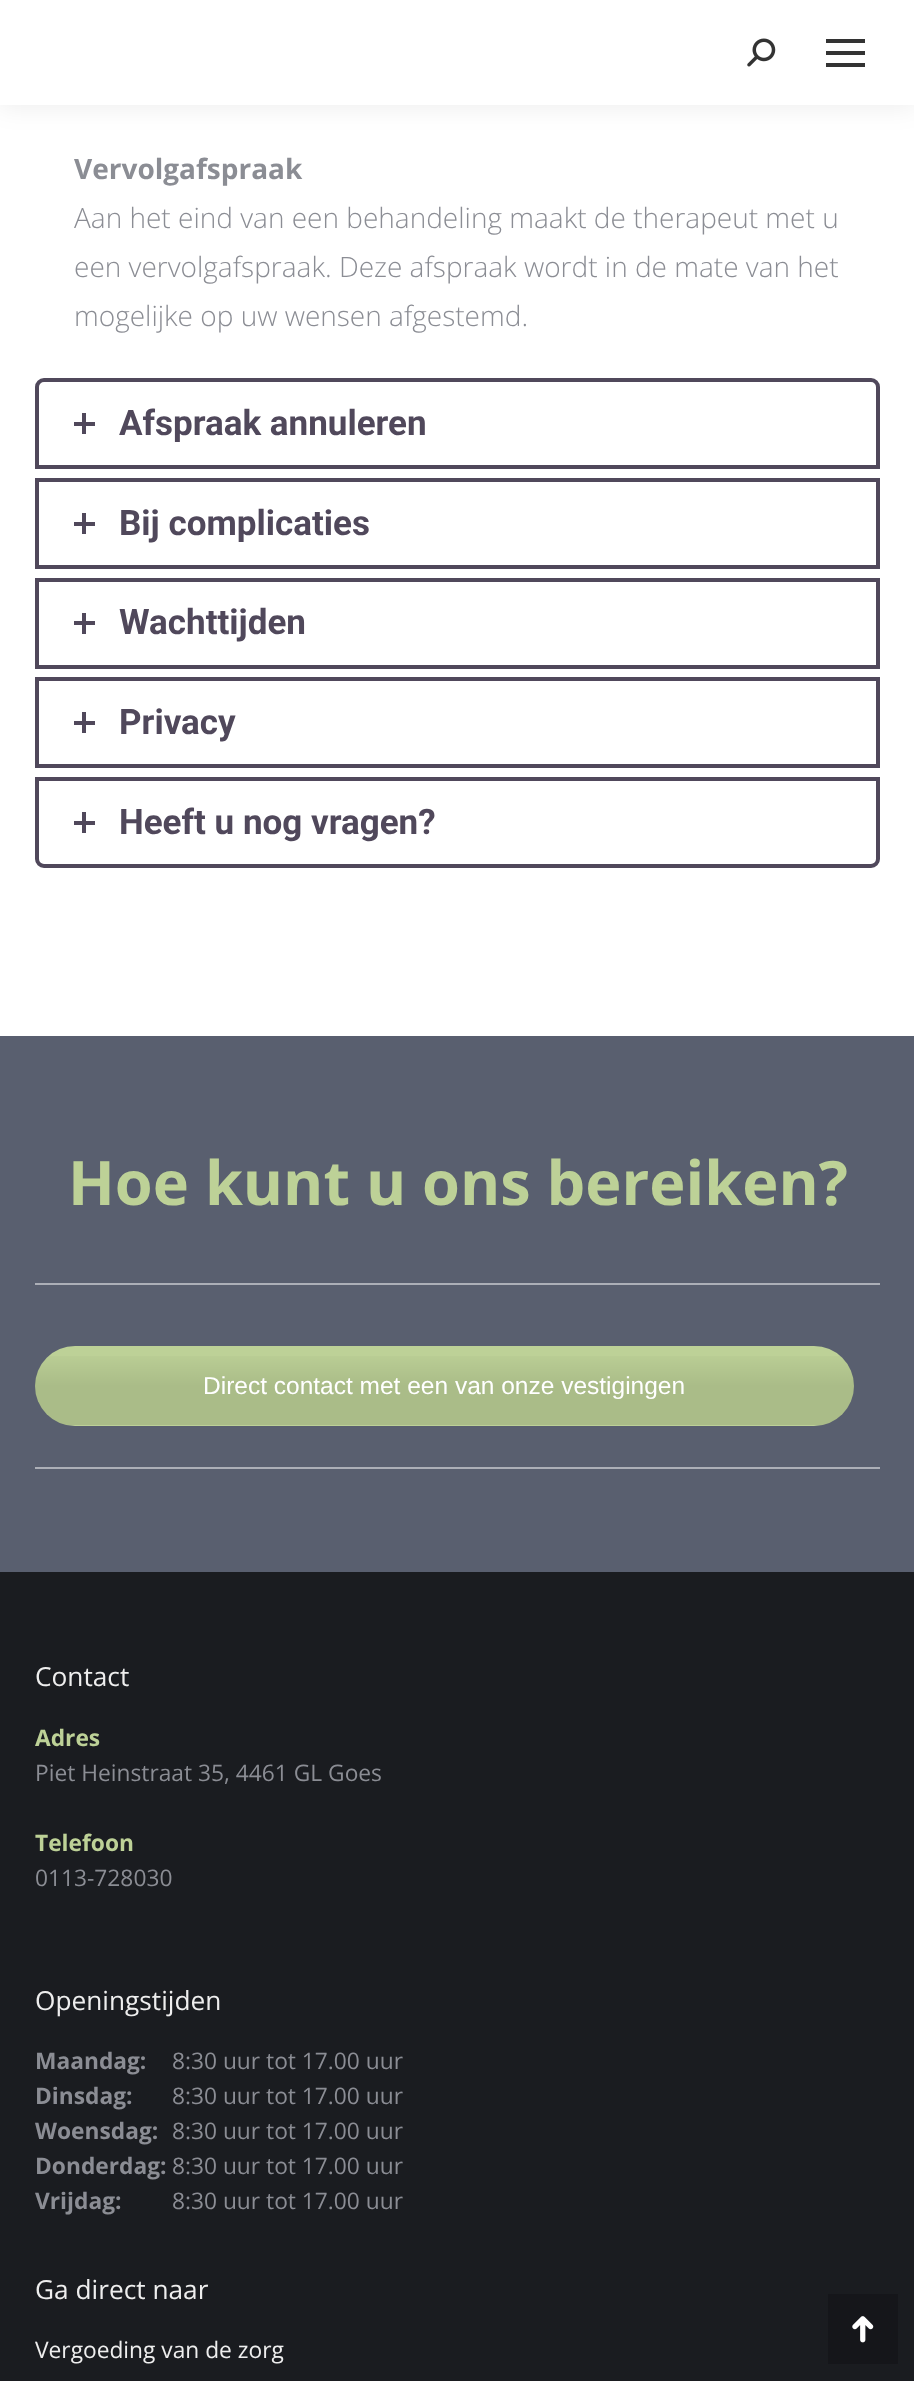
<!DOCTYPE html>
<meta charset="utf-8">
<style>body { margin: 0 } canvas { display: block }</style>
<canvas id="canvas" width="914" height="2381"></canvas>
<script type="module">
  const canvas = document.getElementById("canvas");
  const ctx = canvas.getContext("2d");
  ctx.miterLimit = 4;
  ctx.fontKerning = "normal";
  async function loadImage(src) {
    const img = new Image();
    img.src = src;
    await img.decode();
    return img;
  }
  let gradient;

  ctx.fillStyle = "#ffffff";
  ctx.fillRect(0, 0, 914, 2381);
  ctx.fillStyle = "rgba(0, 0, 0, 0.07)";
  ctx.filter = "blur(13px)";
  ctx.beginPath();
  ctx.rect(-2, -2, 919, 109);
  ctx.fill();
  ctx.filter = "none";
  ctx.fillStyle = "#ffffff";
  ctx.fillRect(0, 0, 914, 105);
  ctx.drawImage(await loadImage("img1.png"), 747, 38, 29, 29);
  ctx.fillStyle = "#333333";
  ctx.fillRect(826, 39, 39, 4);
  ctx.fillRect(826, 51, 39, 4);
  ctx.fillRect(826, 63, 39, 4);
  ctx.font = "bold 28px Open Sans";
  ctx.fillStyle = "#8b8d94";
  ctx.fillText("Vervolgafspraak", 74, 179);
  ctx.font = "300 28px Open Sans";
  ctx.fillText("Aan het eind van een behandeling maakt de therapeut met u", 74, 228);
  ctx.fillText("een vervolgafspraak. Deze afspraak wordt in de mate van het", 74, 277);
  ctx.fillText("mogelijke op uw wensen afgestemd.", 74, 326);
  ctx.beginPath();
  ctx.roundRect(37, 380, 841, 87, [7, 7, 0, 0]);
  ctx.strokeStyle = "#50485b";
  ctx.lineWidth = 4;
  ctx.stroke();
  ctx.fillStyle = "#50485b";
  ctx.fillRect(74, 422, 21, 4);
  ctx.fillRect(82, 413, 4, 21);
  ctx.font = "bold 35px Roboto";
  ctx.fillText("Afspraak annuleren", 119, 435);
  ctx.strokeRect(37, 480, 841, 87);
  ctx.fillRect(74, 522, 21, 4);
  ctx.fillRect(82, 513, 4, 21);
  ctx.fillText("Bij complicaties", 119, 535);
  ctx.strokeRect(37, 580, 841, 87);
  ctx.fillRect(74, 621, 21, 4);
  ctx.fillRect(82, 613, 4, 21);
  ctx.fillText("Wachttijden", 119, 634);
  ctx.strokeRect(37, 679, 841, 87);
  ctx.fillRect(74, 721, 21, 4);
  ctx.fillRect(82, 712, 4, 21);
  ctx.fillText("Privacy", 119, 734);
  ctx.beginPath();
  ctx.roundRect(37, 779, 841, 87, [0, 0, 7, 7]);
  ctx.stroke();
  ctx.fillRect(74, 821, 21, 4);
  ctx.fillRect(82, 812, 4, 21);
  ctx.fillText("Heeft u nog vragen?", 119, 834);
  ctx.fillStyle = "#595f6f";
  ctx.fillRect(0, 1036, 914, 536);
  ctx.font = "bold 61.25px Open Sans";
  ctx.fillStyle = "#bdd197";
  ctx.fillText("Hoe kunt u ons bereiken?", 68, 1205);
  ctx.fillStyle = "#acafb7";
  ctx.fillRect(35, 1283, 845, 2);
  ctx.fillStyle = "#bdd197";
  ctx.beginPath();
  ctx.roundRect(35, 1346, 819, 80, 40);
  ctx.fill();
  ctx.save();
  ctx.beginPath();
  ctx.roundRect(35, 1346, 819, 80, 40);
  ctx.clip();
  gradient = ctx.createLinearGradient(852, 1348, 852, 1425);
  gradient.addColorStop(0, "rgba(0, 0, 0, 0)");
  gradient.addColorStop(0.5, "rgba(0, 0, 0, 0.1)");
  gradient.addColorStop(1, "rgba(0, 0, 0, 0.1)");
  ctx.fillStyle = gradient;
  ctx.fillRect(35, 1356, 819, 69);
  ctx.restore();
  ctx.font = "24.5px Liberation Sans";
  ctx.fillStyle = "#ffffff";
  ctx.fillText("Direct contact met een van onze vestigingen", 203, 1394);
  ctx.fillStyle = "#acafb7";
  ctx.fillRect(35, 1467, 845, 2);
  ctx.fillStyle = "#1a1c20";
  ctx.fillRect(0, 1572, 914, 809);
  ctx.font = "26.25px Open Sans";
  ctx.fillStyle = "#eeeeee";
  ctx.fillText("Contact", 35, 1686);
  ctx.font = "bold 22.75px Open Sans";
  ctx.fillStyle = "#bdd197";
  ctx.fillText("Adres", 35, 1746);
  ctx.font = "22.75px Open Sans";
  ctx.fillStyle = "#8b8d94";
  ctx.fillText("Piet Heinstraat 35, 4461 GL Goes", 35, 1781);
  ctx.font = "bold 22.75px Open Sans";
  ctx.fillStyle = "#bdd197";
  ctx.fillText("Telefoon", 35, 1851);
  ctx.font = "22.75px Open Sans";
  ctx.fillStyle = "#8b8d94";
  ctx.fillText("0113-728030", 35, 1886);
  ctx.font = "26.25px Open Sans";
  ctx.fillStyle = "#eeeeee";
  ctx.fillText("Openingstijden", 35, 2010);
  ctx.font = "bold 22.75px Open Sans";
  ctx.fillStyle = "#8b8d94";
  ctx.fillText("Maandag:", 35, 2069);
  ctx.font = "22.75px Open Sans";
  ctx.fillText("8:30 uur tot 17.00 uur", 172, 2069);
  ctx.font = "bold 22.75px Open Sans";
  ctx.fillText("Dinsdag:", 35, 2104);
  ctx.font = "22.75px Open Sans";
  ctx.fillText("8:30 uur tot 17.00 uur", 172, 2104);
  ctx.font = "bold 22.75px Open Sans";
  ctx.fillText("Woensdag:", 35, 2139);
  ctx.font = "22.75px Open Sans";
  ctx.fillText("8:30 uur tot 17.00 uur", 172, 2139);
  ctx.font = "bold 22.75px Open Sans";
  ctx.fillText("Donderdag:", 35, 2174);
  ctx.font = "22.75px Open Sans";
  ctx.fillText("8:30 uur tot 17.00 uur", 172, 2174);
  ctx.font = "bold 22.75px Open Sans";
  ctx.fillText("Vrijdag:", 35, 2209);
  ctx.font = "22.75px Open Sans";
  ctx.fillText("8:30 uur tot 17.00 uur", 172, 2209);
  ctx.font = "26.25px Open Sans";
  ctx.fillStyle = "#eeeeee";
  ctx.fillText("Ga direct naar", 35, 2299);
  ctx.font = "22.75px Open Sans";
  ctx.fillText("Vergoeding van de zorg", 35, 2358);
  ctx.fillStyle = "#15161a";
  ctx.fillRect(828, 2294, 70, 70);
  ctx.drawImage(await loadImage("img2.png"), 852, 2316, 22, 27);
</script>
